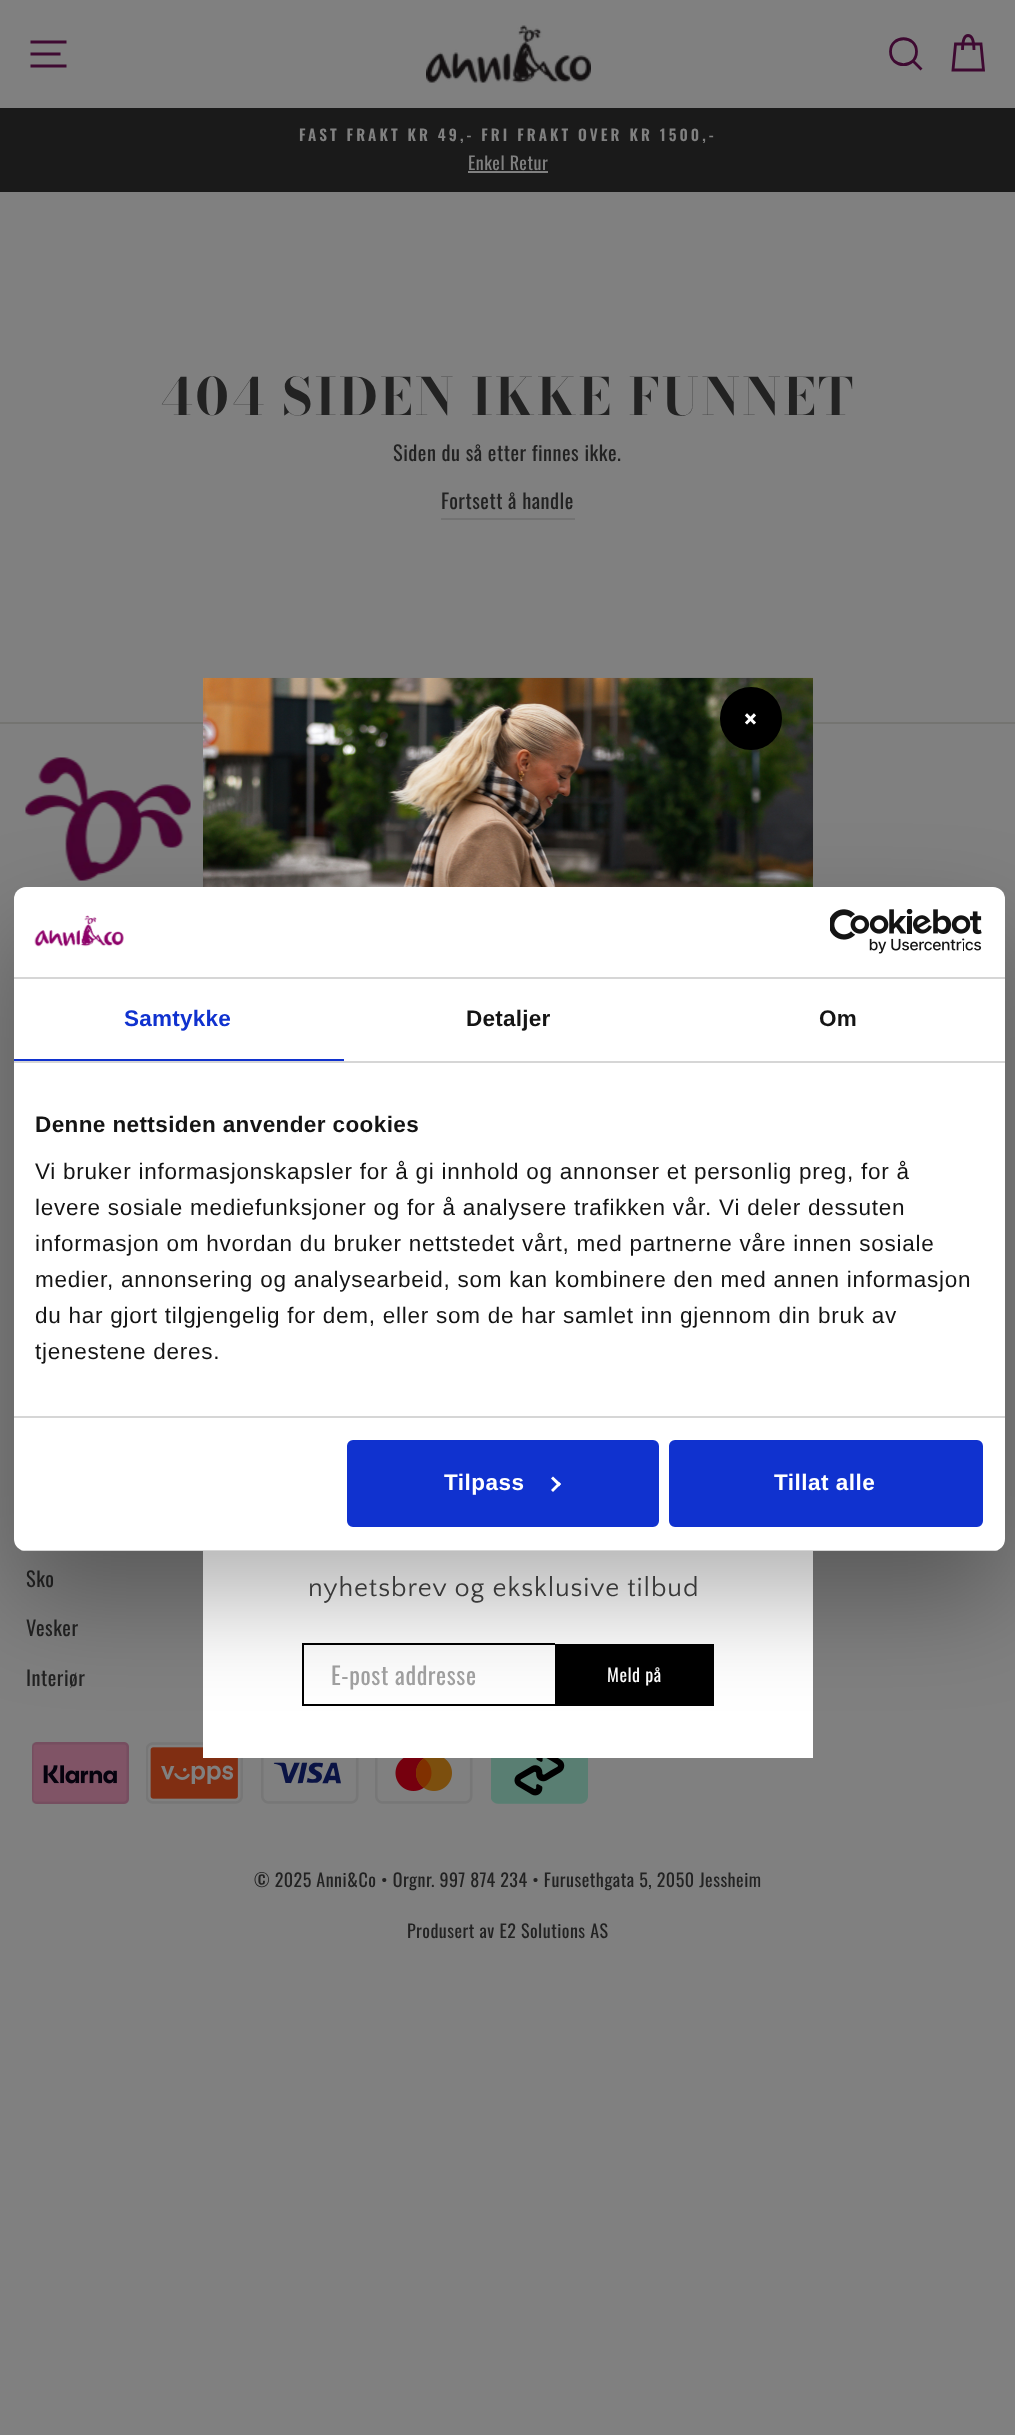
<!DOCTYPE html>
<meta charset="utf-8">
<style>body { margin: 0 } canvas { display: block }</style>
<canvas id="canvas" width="1015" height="2435"></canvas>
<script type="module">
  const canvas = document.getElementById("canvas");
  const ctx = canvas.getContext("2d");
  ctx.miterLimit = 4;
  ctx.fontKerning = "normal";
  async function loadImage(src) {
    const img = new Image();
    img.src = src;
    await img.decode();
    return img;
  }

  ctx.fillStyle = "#808080";
  ctx.fillRect(0, 0, 1015, 2435);
  ctx.beginPath();
  ctx.moveTo(30.5, 42);
  ctx.lineTo(66.5, 42);
  ctx.moveTo(30.5, 54);
  ctx.lineTo(60.5, 54);
  ctx.moveTo(30.5, 66);
  ctx.lineTo(66.5, 66);
  ctx.strokeStyle = "#3e0931";
  ctx.lineWidth = 2.8;
  ctx.stroke();
  ctx.drawImage(await loadImage("img1.png"), 426, 25, 165, 58);
  ctx.beginPath();
  ctx.moveTo(916.5, 51.5);
  ctx.bezierCurveTo(916.5, 69, 890.5, 69, 890.5, 51.5);
  ctx.bezierCurveTo(890.5, 34.5, 916.5, 34.5, 916.5, 51.5);
  ctx.closePath();
  ctx.moveTo(921.5, 69.5);
  ctx.lineTo(913, 61);
  ctx.stroke();
  ctx.beginPath();
  ctx.moveTo(962.5, 50);
  ctx.bezierCurveTo(962.5, 38.5, 965, 35.5, 968, 35.5);
  ctx.bezierCurveTo(971.5, 35.5, 974, 38.5, 974, 50);
  ctx.moveTo(955.5, 44);
  ctx.lineTo(981, 44);
  ctx.lineTo(983.5, 70);
  ctx.lineTo(953, 70);
  ctx.closePath();
  ctx.stroke();
  ctx.fillStyle = "#1a1a1a";
  ctx.fillRect(0, 108, 1015, 84);
  ctx.letterSpacing = "3.05px";
  ctx.font = "600 15.3px Oswald";
  ctx.fillStyle = "#808080";
  ctx.fillText("FAST FRAKT KR 49,- FRI FRAKT OVER KR 1500,-", 299, 141);
  ctx.letterSpacing = "0.5px";
  ctx.font = "18px Oswald";
  ctx.fillText("Enkel Retur", 468, 170);
  ctx.fillRect(468, 171, 80, 2);
  ctx.letterSpacing = "2.55px";
  ctx.font = "bold 51px Bodoni Moda";
  ctx.fillStyle = "#222222";
  ctx.fillText("404 SIDEN IKKE FUNNET", 160, 415);
  ctx.letterSpacing = "0.5px";
  ctx.font = "20.4px Oswald";
  ctx.fillText("Siden du så etter finnes ikke.", 393, 461);
  ctx.fillStyle = "#727272";
  ctx.fillRect(441, 518, 134, 2);
  ctx.fillStyle = "#222222";
  ctx.fillText("Fortsett å handle", 441, 509);
  ctx.fillStyle = "#747471";
  ctx.fillRect(0, 722, 1015, 2);
  ctx.drawImage(await loadImage("img2.png"), 25, 757, 166, 124);
  ctx.fillStyle = "#222222";
  ctx.fillText("Sko", 26, 1587);
  ctx.fillText("Vesker", 26, 1636);
  ctx.fillText("Interiør", 26, 1686);
  ctx.drawImage(await loadImage("img3.png"), 32, 1742, 97, 62);
  ctx.drawImage(await loadImage("img4.png"), 146, 1742, 97, 62);
  ctx.drawImage(await loadImage("img5.png"), 261, 1758, 98, 46);
  ctx.drawImage(await loadImage("img6.png"), 375, 1758, 98, 46);
  ctx.drawImage(await loadImage("img7.png"), 491, 1758, 97, 46);
  ctx.font = "18px Oswald";
  ctx.fillText("© 2025 Anni&Co • Orgnr. 997 874 234 • Furusethgata 5, 2050 Jessheim", 254, 1887);
  ctx.fillText("Produsert av E2 Solutions AS", 407, 1938);
  ctx.fillStyle = "#ffffff";
  ctx.fillRect(203, 1551, 610, 207);
  ctx.drawImage(await loadImage("img8.png"), 203, 677, 610, 210);
  ctx.fillStyle = "#000000";
  ctx.beginPath();
  ctx.roundRect(720, 687, 62, 63, 31);
  ctx.fill();
  ctx.font = "39px Oswald";
  ctx.fillStyle = "#ffffff";
  ctx.fillText("×", 743, 735);
  ctx.letterSpacing = "0.9px";
  ctx.font = "27px Quattrocento Sans";
  ctx.fillStyle = "#454545";
  ctx.fillText("nyhetsbrev og eksklusive tilbud", 308, 1596);
  ctx.fillStyle = "#000000";
  ctx.fillRect(302, 1643, 253, 2);
  ctx.fillRect(302, 1704, 253, 2);
  ctx.fillRect(302, 1643, 2, 63);
  ctx.letterSpacing = "0.6px";
  ctx.font = "24px Oswald";
  ctx.fillStyle = "#a2a2a2";
  ctx.fillText("E-post addresse", 331, 1685);
  ctx.fillStyle = "#000000";
  ctx.fillRect(555, 1644, 159, 62);
  ctx.letterSpacing = "0.5px";
  ctx.font = "18px Oswald";
  ctx.fillStyle = "#ffffff";
  ctx.fillText("Meld på", 607, 1682);
  ctx.fillStyle = "rgba(0, 0, 0, 0.3)";
  ctx.filter = "blur(51px)";
  ctx.beginPath();
  ctx.roundRect(14, 935, 991, 664, 12);
  ctx.fill();
  ctx.filter = "none";
  ctx.fillStyle = "#ffffff";
  ctx.beginPath();
  ctx.roundRect(14, 887, 991, 664, 12);
  ctx.fill();
  ctx.fillStyle = "#d6d6d6";
  ctx.fillRect(14, 977, 991, 2);
  ctx.drawImage(await loadImage("img9.png"), 34, 915, 90, 32);
  ctx.drawImage(await loadImage("img10.png"), 830, 909, 152, 45);
  ctx.fillRect(14, 1061, 991, 2);
  ctx.fillStyle = "#1032cf";
  ctx.fillRect(14, 1059, 330, 2);
  ctx.letterSpacing = "0.25px";
  ctx.font = "bold 22.5px Liberation Sans";
  ctx.fillText("Samtykke", 124, 1026);
  ctx.fillStyle = "#141414";
  ctx.fillText("Detaljer", 466, 1026);
  ctx.fillText("Om", 819, 1026);
  ctx.fillStyle = "#d6d6d6";
  ctx.fillRect(14, 1416, 991, 2);
  ctx.letterSpacing = "0.4px";
  ctx.fillStyle = "#141414";
  ctx.fillText("Denne nettsiden anvender cookies", 35, 1132);
  ctx.letterSpacing = "0.75px";
  ctx.font = "22.5px Liberation Sans";
  ctx.fillText("Vi bruker informasjonskapsler for å gi innhold og annonser et personlig preg, for å", 35, 1179);
  ctx.fillText("levere sosiale mediefunksjoner og for å analysere trafikken vår. Vi deler dessuten", 35, 1215);
  ctx.fillText("informasjon om hvordan du bruker nettstedet vårt, med partnerne våre innen sosiale", 35, 1251);
  ctx.fillText("medier, annonsering og analysearbeid, som kan kombinere den med annen informasjon", 35, 1287);
  ctx.fillText("du har gjort tilgjengelig for dem, eller som de har samlet inn gjennom din bruk av", 35, 1323);
  ctx.fillText("tjenestene deres.", 35, 1359);
  ctx.save();
  ctx.beginPath();
  ctx.roundRect(14, 887, 991, 664, 12);
  ctx.clip();
  ctx.fillStyle = "#d6d6d6";
  ctx.fillRect(14, 1550, 991, 1);
  ctx.restore();
  ctx.fillStyle = "#1032cf";
  ctx.beginPath();
  ctx.roundRect(348.5, 1441.5, 309, 84, 4.5);
  ctx.fill();
  ctx.strokeStyle = "#1032cf";
  ctx.lineWidth = 3;
  ctx.stroke();
  ctx.letterSpacing = "0.5px";
  ctx.font = "bold 22.5px Liberation Sans";
  ctx.fillStyle = "#ffffff";
  ctx.fillText("Tilpass", 444, 1490);
  ctx.beginPath();
  ctx.moveTo(553, 1476.5);
  ctx.lineTo(561, 1484);
  ctx.lineTo(559, 1486.5);
  ctx.lineTo(551, 1478.5);
  ctx.closePath();
  ctx.fill();
  ctx.beginPath();
  ctx.moveTo(559, 1482);
  ctx.lineTo(561, 1484);
  ctx.lineTo(553, 1492);
  ctx.lineTo(551, 1490);
  ctx.closePath();
  ctx.fill();
  ctx.fillStyle = "#1032cf";
  ctx.beginPath();
  ctx.roundRect(670.5, 1441.5, 311, 84, 4.5);
  ctx.fill();
  ctx.stroke();
  ctx.fillStyle = "#ffffff";
  ctx.fillText("Tillat alle", 774, 1490);
</script>
